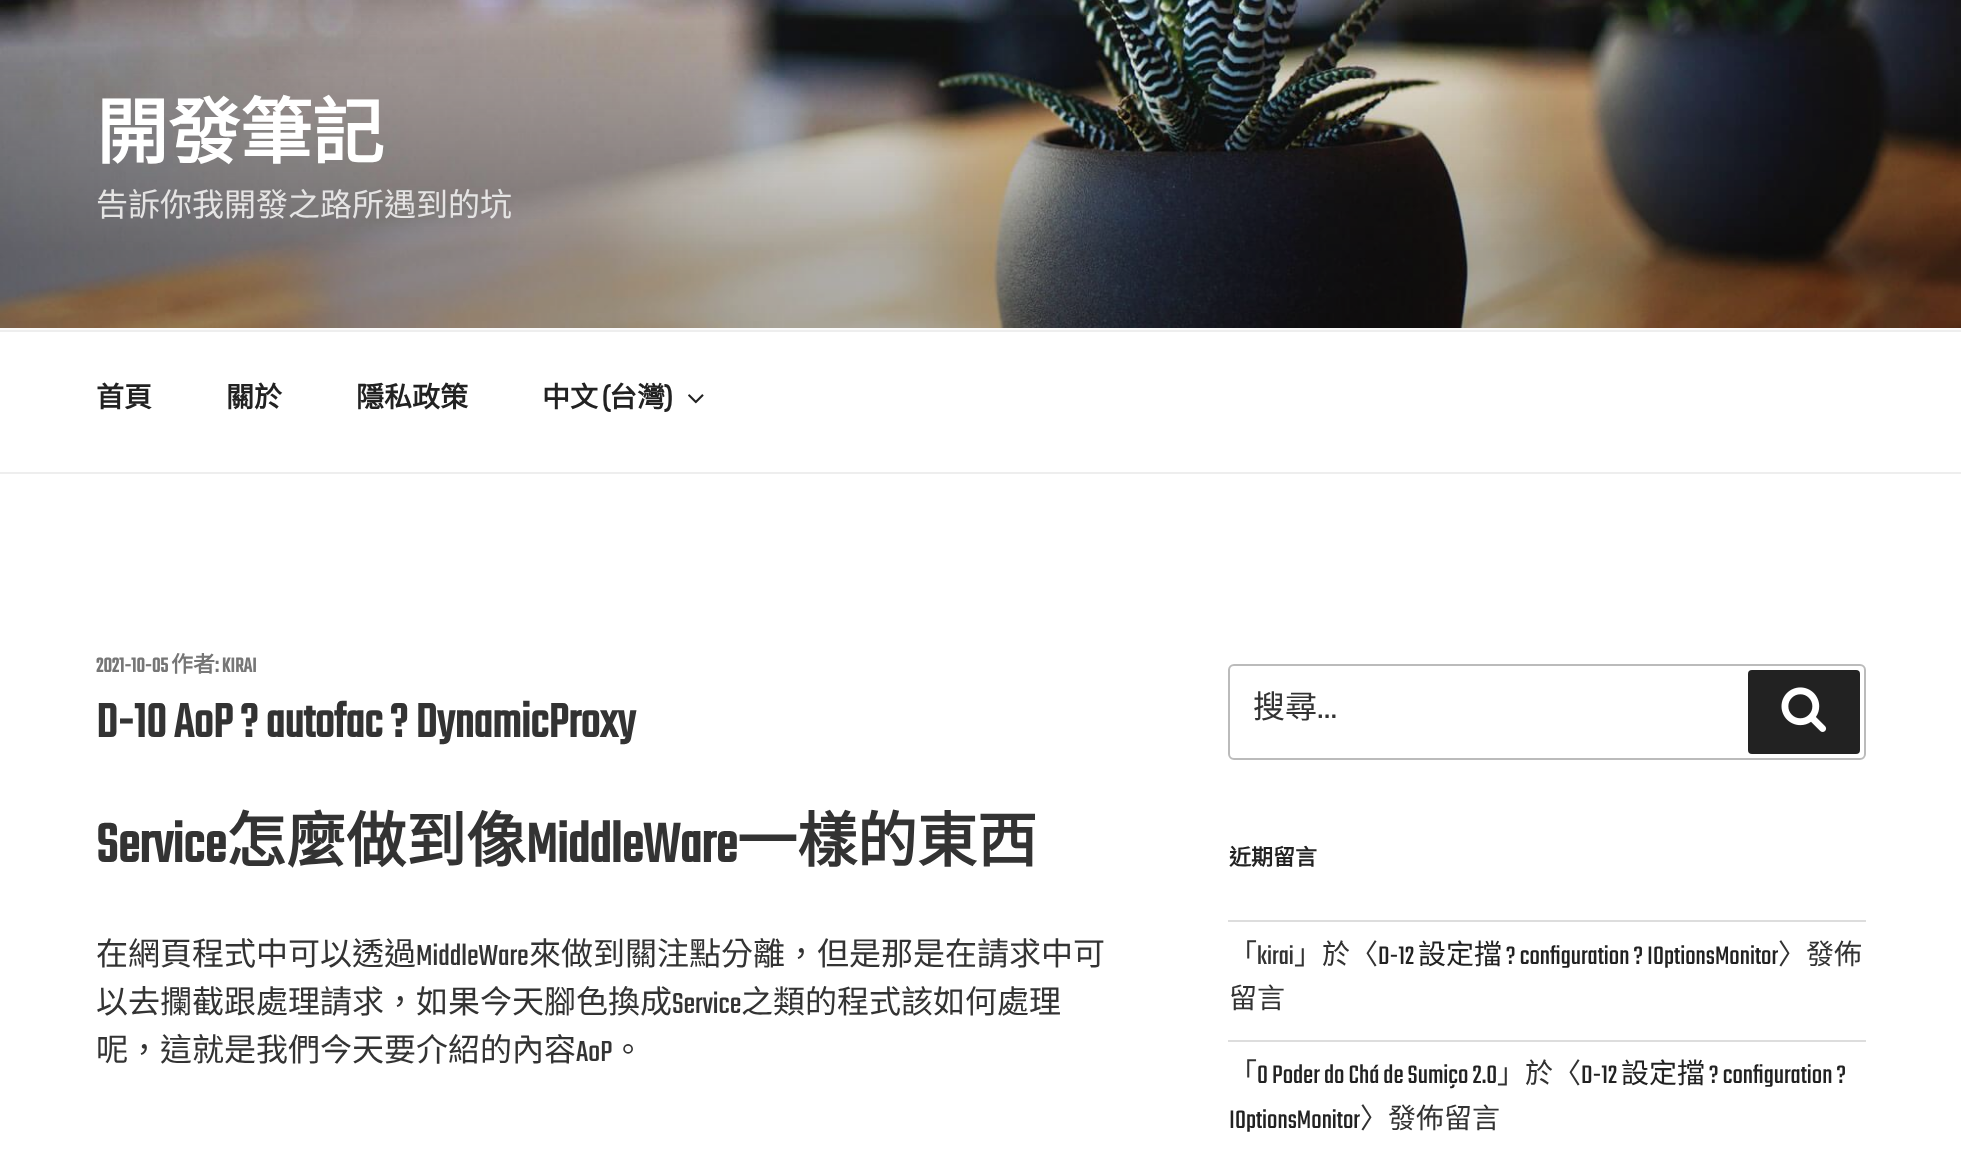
<!DOCTYPE html>
<meta charset="utf-8">
<style>body { margin: 0 } canvas { display: block }</style>
<canvas id="canvas" width="1961" height="1158"></canvas>
<script type="module">
  const canvas = document.getElementById("canvas");
  const ctx = canvas.getContext("2d");
  ctx.miterLimit = 4;
  ctx.fontKerning = "normal";
  async function loadImage(src) {
    const img = new Image();
    img.src = src;
    await img.decode();
    return img;
  }

  ctx.fillStyle = "#ffffff";
  ctx.fillRect(0, 0, 1961, 1158);
  ctx.fillStyle = "#fafafa";
  ctx.fillRect(0, 328, 1961, 2);
  ctx.drawImage(await loadImage("img1.png"), 0, 0, 1961, 328);
  ctx.font = "bold 72px Noto Sans TC";
  ctx.fillStyle = "#ffffff";
  ctx.fillText("開發筆記", 96, 158);
  ctx.font = "100 32px Noto Sans TC";
  ctx.fillStyle = "#e5e4e4";
  ctx.fillText("告訴你我開發之路所遇到的坑", 96, 216);
  ctx.fillStyle = "#eeeeee";
  ctx.fillRect(0, 330, 1961, 2);
  ctx.fillRect(0, 472, 1961, 2);
  ctx.font = "bold 28px Noto Sans TC";
  ctx.fillStyle = "#222222";
  ctx.fillText("首頁", 96, 407);
  ctx.fillText("關於", 226, 407);
  ctx.fillText("隱私政策", 356, 407);
  ctx.fillText("中文", 542, 407);
  ctx.font = "bold 28px Teko";
  ctx.fillText("(", 602, 407);
  ctx.font = "bold 28px Noto Sans TC";
  ctx.fillText("台灣", 609, 407);
  ctx.font = "bold 28px Teko";
  ctx.fillText(")", 665, 407);
  ctx.drawImage(await loadImage("img2.png"), 688, 394, 16, 10);
  ctx.font = "bold 22px Teko";
  ctx.fillStyle = "#767676";
  ctx.fillText("2021-10-05", 96, 672);
  ctx.font = "bold 22px Noto Sans TC";
  ctx.fillText("作者", 171, 672);
  ctx.font = "bold 22px Teko";
  ctx.fillText(": KIRAI", 215, 672);
  ctx.font = "bold 52px Teko";
  ctx.fillStyle = "#333333";
  ctx.fillText("D-10 AoP ? autofac ? DynamicProxy", 96, 737);
  ctx.font = "bold 60px Teko";
  ctx.fillText("Service", 96, 862);
  ctx.font = "bold 60px Noto Sans TC";
  ctx.fillText("怎麼做到像", 226, 862);
  ctx.font = "bold 60px Teko";
  ctx.fillText("MiddleWare", 526, 862);
  ctx.font = "bold 60px Noto Sans TC";
  ctx.fillText("一樣的東西", 737, 862);
  ctx.font = "100 32px Noto Sans TC";
  ctx.fillText("在網頁程式中可以透過", 96, 965);
  ctx.font = "300 32px Teko";
  ctx.fillText("MiddleWare", 416, 965);
  ctx.font = "100 32px Noto Sans TC";
  ctx.fillText("來做到關注點分離，但是那是在請求中可", 529, 965);
  ctx.fillText("以去攔截跟處理請求，如果今天腳色換成", 96, 1013);
  ctx.font = "300 32px Teko";
  ctx.fillText("Service", 672, 1013);
  ctx.font = "100 32px Noto Sans TC";
  ctx.fillText("之類的程式該如何處理", 741, 1013);
  ctx.fillText("呢，這就是我們今天要介紹的內容", 96, 1061);
  ctx.font = "300 32px Teko";
  ctx.fillText("AoP", 576, 1061);
  ctx.font = "100 32px Noto Sans TC";
  ctx.fillText("。", 612, 1061);
  ctx.beginPath();
  ctx.roundRect(1229, 665, 636, 94, 5);
  ctx.strokeStyle = "#bbbbbb";
  ctx.lineWidth = 2;
  ctx.stroke();
  ctx.font = "32px Noto Sans CJK TC";
  ctx.fillText("搜尋", 1253, 718);
  ctx.font = "100 32px Libre Franklin";
  ctx.fillText("...", 1317, 718);
  ctx.fillStyle = "#222222";
  ctx.beginPath();
  ctx.roundRect(1748, 670, 112, 84, 4);
  ctx.fill();
  ctx.drawImage(await loadImage("img3.png"), 1781, 687, 46, 45);
  ctx.font = "bold 22px Noto Sans TC";
  ctx.fillText("近期留言", 1229, 865);
  ctx.fillStyle = "#dddddd";
  ctx.fillRect(1228, 920, 638, 2);
  ctx.fillRect(1228, 1040, 638, 2);
  ctx.font = "100 28px Noto Sans TC";
  ctx.fillStyle = "#333333";
  ctx.fillText("「", 1229, 964);
  ctx.font = "300 28px Teko";
  ctx.fillText("kirai", 1257, 964);
  ctx.font = "100 28px Noto Sans TC";
  ctx.fillText("」於〈", 1294, 964);
  ctx.font = "300 28px Teko";
  ctx.fillStyle = "#222222";
  ctx.fillText("D-12", 1378, 964);
  ctx.font = "100 28px Noto Sans TC";
  ctx.fillText("設定擋", 1418, 964);
  ctx.font = "300 28px Teko";
  ctx.fillText("? configuration ? IOptionsMonitor", 1506, 964);
  ctx.font = "100 28px Noto Sans TC";
  ctx.fillStyle = "#333333";
  ctx.fillText("〉發佈", 1778, 964);
  ctx.fillText("留言", 1229, 1008);
  ctx.fillText("「", 1229, 1083);
  ctx.font = "300 28px Teko";
  ctx.fillStyle = "#222222";
  ctx.fillText("O Poder do Chá de Sumiço 2.0", 1257, 1083);
  ctx.font = "100 28px Noto Sans TC";
  ctx.fillStyle = "#333333";
  ctx.fillText("」於〈", 1497, 1083);
  ctx.font = "300 28px Teko";
  ctx.fillStyle = "#222222";
  ctx.fillText("D-12", 1581, 1083);
  ctx.font = "100 28px Noto Sans TC";
  ctx.fillText("設定擋", 1621, 1083);
  ctx.font = "300 28px Teko";
  ctx.fillText("? configuration ?", 1709, 1083);
  ctx.fillText("IOptionsMonitor", 1229, 1128);
  ctx.font = "100 28px Noto Sans TC";
  ctx.fillStyle = "#333333";
  ctx.fillText("〉發佈留言", 1360, 1128);
</script>
